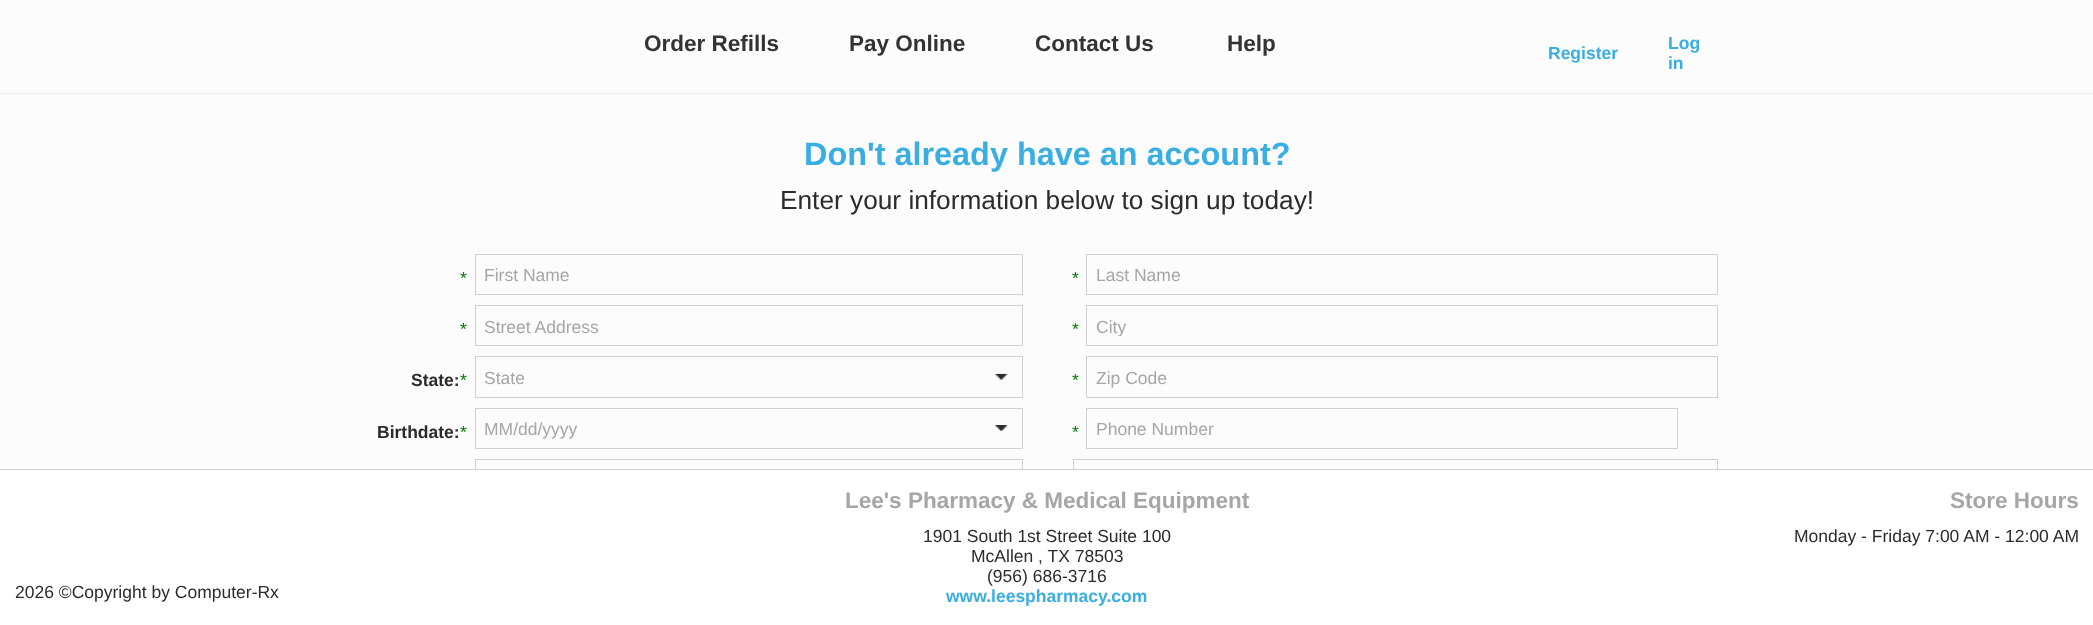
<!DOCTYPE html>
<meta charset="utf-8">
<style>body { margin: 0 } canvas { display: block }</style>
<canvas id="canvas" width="2093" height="625"></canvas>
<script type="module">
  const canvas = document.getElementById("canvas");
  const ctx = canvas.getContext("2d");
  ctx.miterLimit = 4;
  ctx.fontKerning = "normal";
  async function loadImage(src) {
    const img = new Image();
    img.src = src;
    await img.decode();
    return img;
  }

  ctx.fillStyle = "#fcfcfc";
  ctx.fillRect(0, 0, 2093, 625);
  ctx.fillStyle = "rgba(0, 0, 0, 0.05)";
  ctx.filter = "blur(0.5px)";
  ctx.beginPath();
  ctx.rect(0, 1, 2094, 93);
  ctx.fill();
  ctx.filter = "none";
  ctx.fillStyle = "#fcfcfc";
  ctx.fillRect(0, 1, 2093, 92);
  ctx.font = "bold 22.5px Liberation Sans";
  ctx.fillStyle = "#333333";
  ctx.fillText("Order Refills", 644, 51);
  ctx.fillText("Pay Online", 849, 51);
  ctx.fillText("Contact Us", 1035, 51);
  ctx.fillText("Help", 1227, 51);
  ctx.font = "bold 17.5px Liberation Sans";
  ctx.fillStyle = "#39aee2";
  ctx.fillText("Register", 1548, 59);
  ctx.fillText("Log", 1668, 49);
  ctx.fillText("in", 1668, 69);
  ctx.font = "bold 32.4px Liberation Sans";
  ctx.fillText("Don't already have an account?", 804, 165);
  ctx.font = "26.25px Liberation Sans";
  ctx.fillStyle = "#2b2b2b";
  ctx.fillText("Enter your information below to sign up today!", 780, 209);
  ctx.font = "17.5px Liberation Sans";
  ctx.fillStyle = "#008000";
  ctx.fillText("*", 460, 284);
  ctx.strokeStyle = "#d1d1d1";
  ctx.strokeRect(475.5, 254.5, 547, 40);
  ctx.fillStyle = "#a6a6a6";
  ctx.fillText("First Name", 484, 281);
  ctx.fillStyle = "#008000";
  ctx.fillText("*", 1072, 284);
  ctx.strokeRect(1086.5, 254.5, 631, 40);
  ctx.fillStyle = "#a6a6a6";
  ctx.fillText("Last Name", 1096, 281);
  ctx.fillStyle = "#008000";
  ctx.fillText("*", 460, 335);
  ctx.strokeRect(475.5, 305.5, 547, 40);
  ctx.fillStyle = "#a6a6a6";
  ctx.fillText("Street Address", 484, 333);
  ctx.fillStyle = "#008000";
  ctx.fillText("*", 1072, 335);
  ctx.strokeRect(1086.5, 305.5, 631, 40);
  ctx.save();
  ctx.beginPath();
  ctx.rect(1096, 316, 618, 20);
  ctx.clip();
  ctx.fillStyle = "#a6a6a6";
  ctx.fillText("City", 1096, 333);
  ctx.restore();
  ctx.font = "bold 17.5px Liberation Sans";
  ctx.fillStyle = "#2b2b2b";
  ctx.fillText("State:", 411, 386);
  ctx.font = "17.5px Liberation Sans";
  ctx.fillStyle = "#008000";
  ctx.fillText("*", 460, 386);
  ctx.strokeRect(475.5, 356.5, 547, 41);
  ctx.fillStyle = "#a6a6a6";
  ctx.fillText("State", 484, 384);
  ctx.drawImage(await loadImage("img1.png"), 995, 373, 13, 7);
  ctx.fillStyle = "#008000";
  ctx.fillText("*", 1072, 386);
  ctx.strokeRect(1086.5, 356.5, 631, 41);
  ctx.fillStyle = "#a6a6a6";
  ctx.fillText("Zip Code", 1096, 384);
  ctx.font = "bold 17.5px Liberation Sans";
  ctx.fillStyle = "#2b2b2b";
  ctx.fillText("Birthdate:", 377, 438);
  ctx.font = "17.5px Liberation Sans";
  ctx.fillStyle = "#008000";
  ctx.fillText("*", 460, 438);
  ctx.strokeRect(475.5, 408.5, 547, 40);
  ctx.fillStyle = "#a6a6a6";
  ctx.fillText("MM/dd/yyyy", 484, 435);
  ctx.drawImage(await loadImage("img2.png"), 995, 425, 13, 7);
  ctx.fillStyle = "#008000";
  ctx.fillText("*", 1072, 438);
  ctx.strokeRect(1086.5, 408.5, 591, 40);
  ctx.fillStyle = "#a6a6a6";
  ctx.fillText("Phone Number", 1096, 435);
  ctx.strokeRect(475.5, 459.5, 547, 40);
  ctx.strokeRect(1073.5, 459.5, 644, 40);
  ctx.fillStyle = "#ffffff";
  ctx.fillRect(0, 470, 2093, 155);
  ctx.fillStyle = "#d1d1d1";
  ctx.fillRect(0, 469, 2093, 1);
  ctx.font = "bold 22.5px Liberation Sans";
  ctx.fillStyle = "#a6a6a6";
  ctx.fillText("Lee's Pharmacy & Medical Equipment", 845, 508);
  ctx.font = "17.5px Liberation Sans";
  ctx.fillStyle = "#2b2b2b";
  ctx.fillText("1901 South 1st Street Suite 100", 923, 542);
  ctx.fillText("McAllen , TX 78503", 971, 562);
  ctx.fillText("(956) 686-3716", 987, 582);
  ctx.font = "bold 17.5px Liberation Sans";
  ctx.fillStyle = "#39aee2";
  ctx.fillText("www.leespharmacy.com", 946, 602);
  ctx.font = "bold 22.5px Liberation Sans";
  ctx.fillStyle = "#a6a6a6";
  ctx.fillText("Store Hours", 1950, 508);
  ctx.font = "17.5px Liberation Sans";
  ctx.fillStyle = "#2b2b2b";
  ctx.fillText("Monday - Friday 7:00 AM - 12:00 AM", 1794, 542);
  ctx.fillText("2026 ©Copyright by Computer-Rx", 15, 598);
</script>
